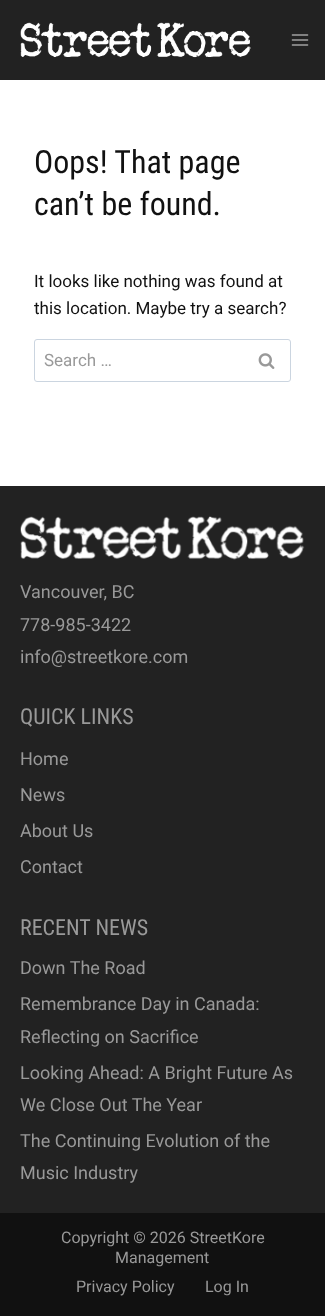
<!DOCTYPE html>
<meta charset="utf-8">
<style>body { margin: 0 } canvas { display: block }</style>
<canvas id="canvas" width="325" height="1316"></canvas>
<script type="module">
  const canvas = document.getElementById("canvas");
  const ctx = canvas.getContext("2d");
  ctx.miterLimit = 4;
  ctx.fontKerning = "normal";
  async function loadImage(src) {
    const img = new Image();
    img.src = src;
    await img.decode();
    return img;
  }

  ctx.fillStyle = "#ffffff";
  ctx.fillRect(0, 0, 325, 1316);
  ctx.fillStyle = "#222222";
  ctx.fillRect(0, 0, 325, 80);
  ctx.drawImage(await loadImage("img1.png"), 20, 22, 231, 36);
  ctx.drawImage(await loadImage("img2.png"), 291, 34, 18, 12);
  ctx.font = "32px Roboto Condensed";
  ctx.fillStyle = "#111111";
  ctx.fillText("Oops! That page", 34, 173);
  ctx.fillText("can’t be found.", 34, 215);
  ctx.font = "17px Roboto";
  ctx.fillText("It looks like nothing was found at", 34, 287);
  ctx.fillText("this location. Maybe try a search?", 34, 314);
  ctx.beginPath();
  ctx.roundRect(34.5, 339.5, 256, 42, 2.5);
  ctx.strokeStyle = "#cbd5e0";
  ctx.stroke();
  ctx.fillStyle = "#999999";
  ctx.fillText("Search …", 44, 366);
  ctx.drawImage(await loadImage("img3.png"), 258, 353, 17, 16);
  ctx.fillStyle = "#222222";
  ctx.fillRect(0, 486, 325, 727);
  ctx.drawImage(await loadImage("img4.png"), 20, 516, 285, 44);
  ctx.font = "18px Roboto";
  ctx.fillStyle = "#999999";
  ctx.fillText("Vancouver, BC", 20, 598);
  ctx.fillText("778-985-3422", 20, 631);
  ctx.fillText("info@streetkore.com", 20, 663);
  ctx.font = "22px Roboto Condensed";
  ctx.fillText("QUICK LINKS", 20, 724);
  ctx.font = "18px Roboto";
  ctx.fillText("Home", 20, 765);
  ctx.fillText("News", 20, 801);
  ctx.fillText("About Us", 20, 837);
  ctx.fillText("Contact", 20, 873);
  ctx.font = "22px Roboto Condensed";
  ctx.fillText("RECENT NEWS", 20, 935);
  ctx.font = "18px Roboto";
  ctx.fillText("Down The Road", 20, 974);
  ctx.fillText("Remembrance Day in Canada:", 20, 1010);
  ctx.fillText("Reflecting on Sacrifice", 20, 1043);
  ctx.fillText("Looking Ahead: A Bright Future As", 20, 1079);
  ctx.fillText("We Close Out The Year", 20, 1111);
  ctx.fillText("The Continuing Evolution of the", 20, 1147);
  ctx.fillText("Music Industry", 20, 1179);
  ctx.fillStyle = "#111111";
  ctx.fillRect(0, 1213, 325, 103);
  ctx.font = "16px Roboto";
  ctx.fillStyle = "#999999";
  ctx.fillText("Copyright © 2026 StreetKore", 61, 1243);
  ctx.fillText("Management", 115, 1263);
  ctx.fillText("Privacy Policy", 76, 1292);
  ctx.fillText("Log In", 205, 1292);
</script>
